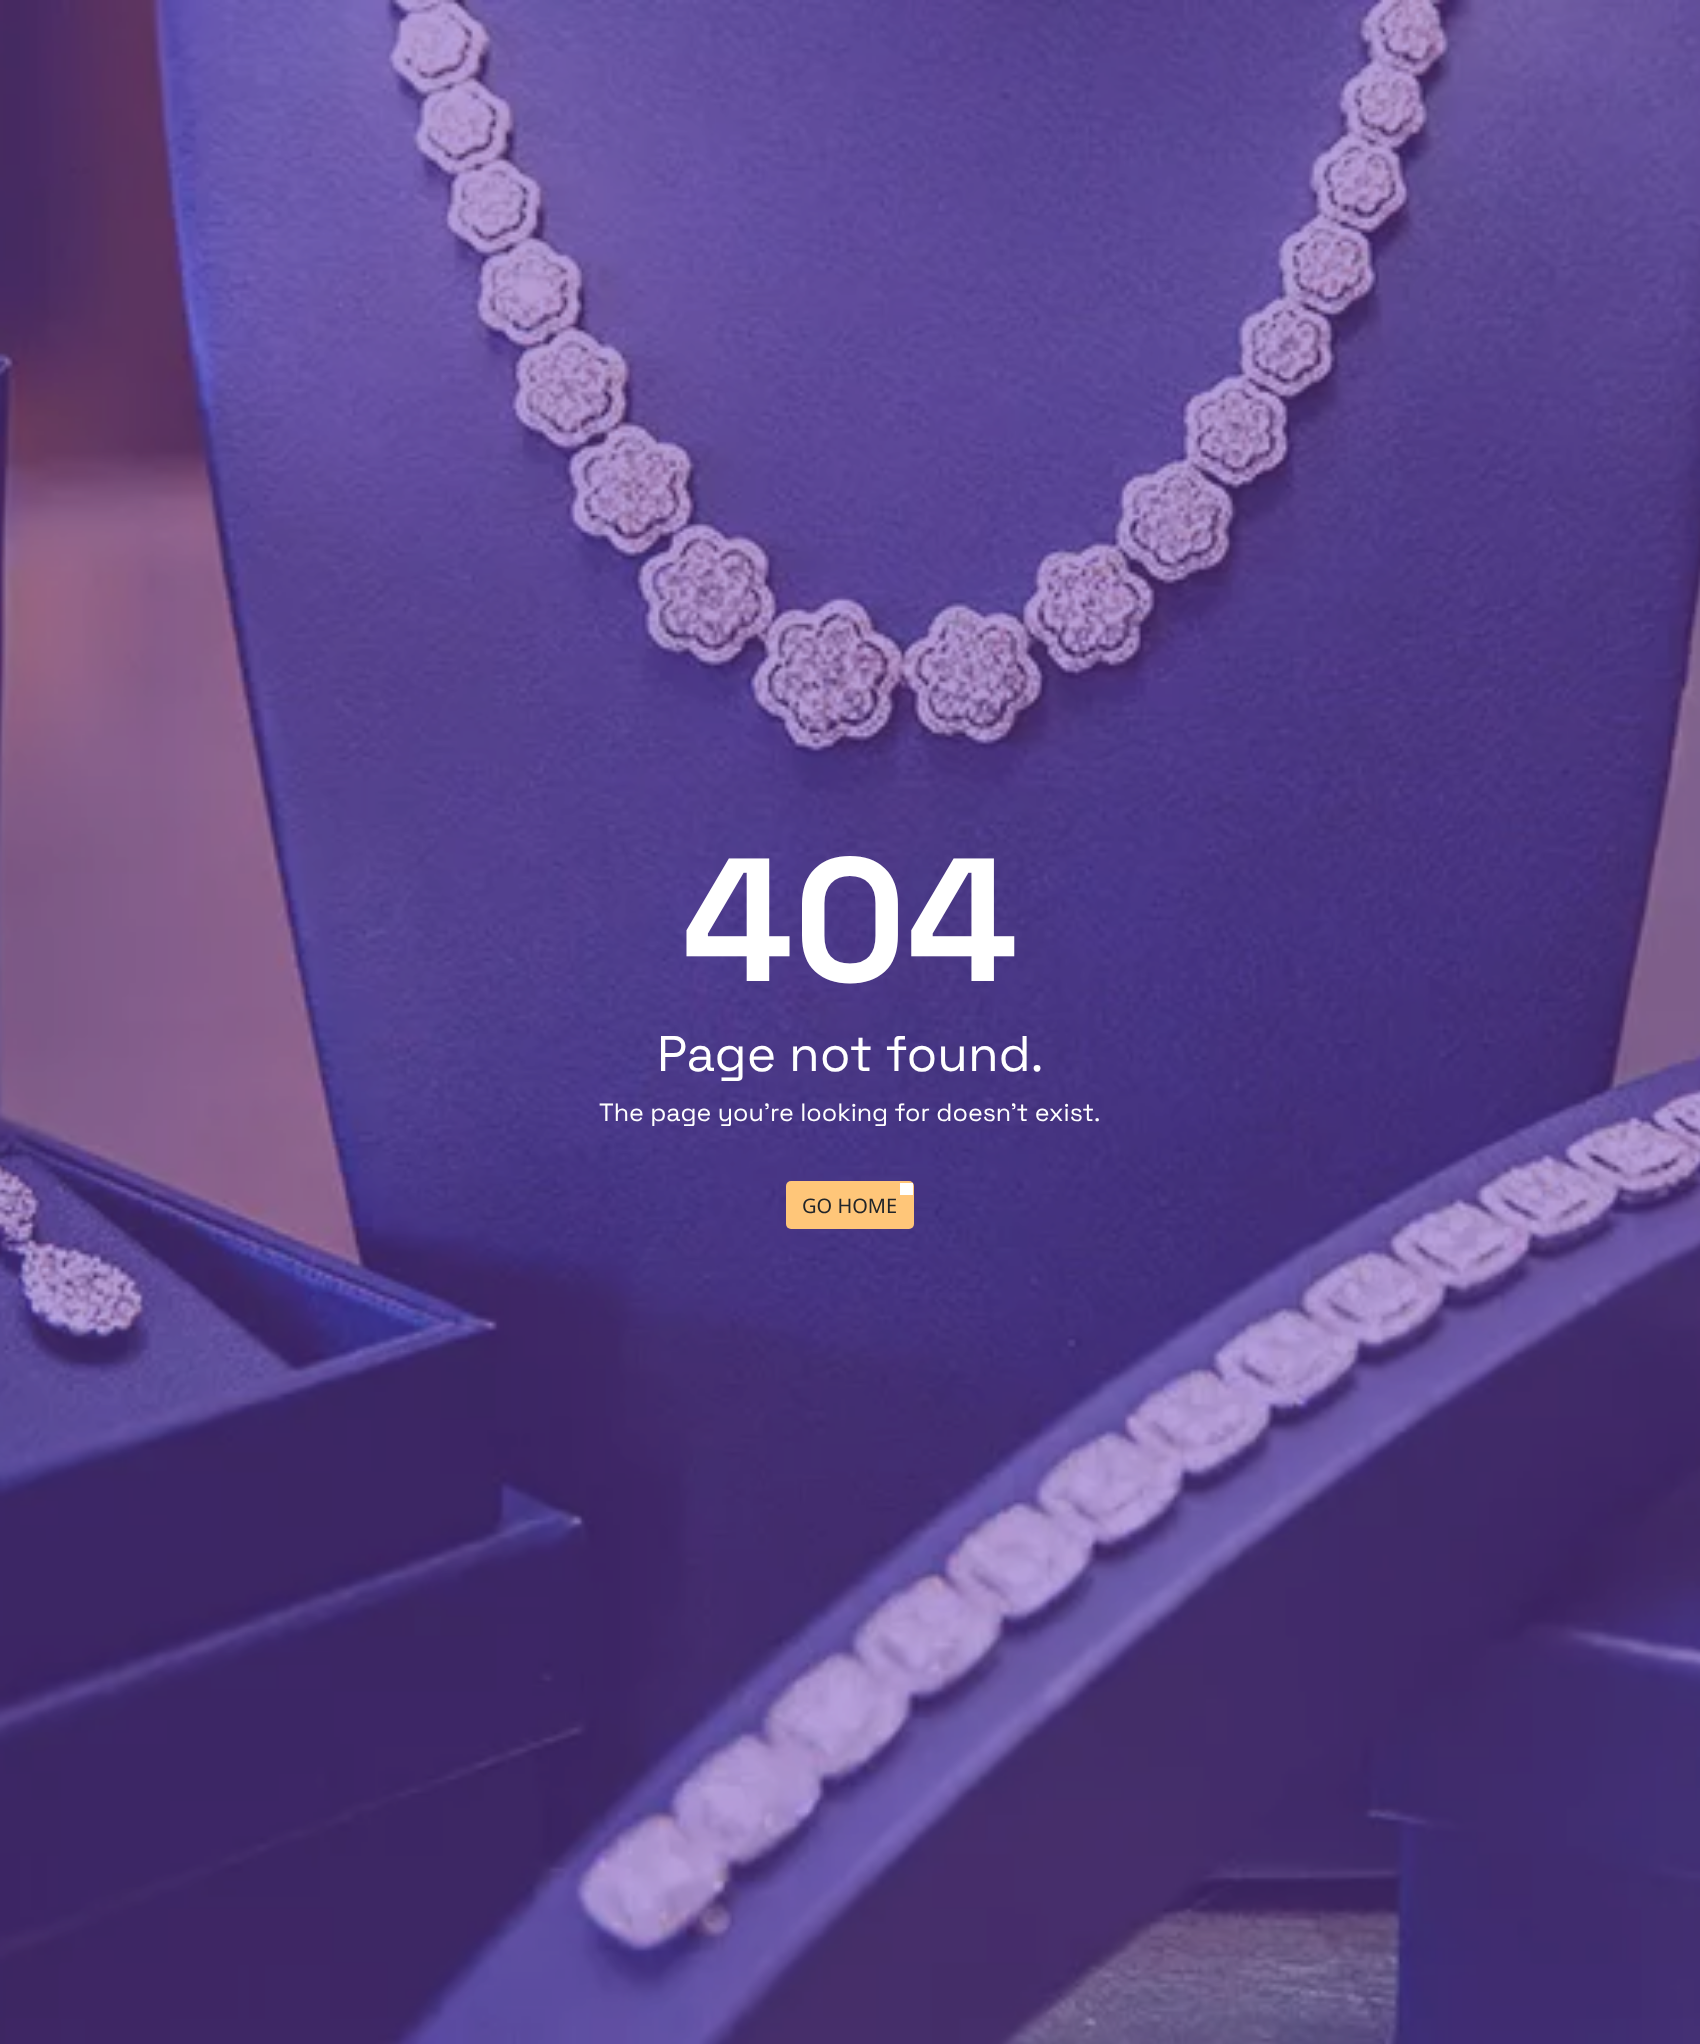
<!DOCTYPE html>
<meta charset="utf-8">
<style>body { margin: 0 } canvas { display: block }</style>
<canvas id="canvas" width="1700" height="2044"></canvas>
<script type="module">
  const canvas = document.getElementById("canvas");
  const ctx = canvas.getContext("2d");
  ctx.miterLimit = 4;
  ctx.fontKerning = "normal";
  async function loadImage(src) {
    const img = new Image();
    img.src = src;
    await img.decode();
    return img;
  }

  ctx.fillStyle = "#ffffff";
  ctx.fillRect(0, 0, 1700, 2044);
  ctx.drawImage(await loadImage("img1.png"), 0, 0, 1700, 2044);
  ctx.font = "bold 175px Space Grotesk";
  ctx.fillText("404", 682, 981);
  ctx.font = "50px Space Grotesk";
  ctx.fillText("Page not found.", 657, 1071);
  ctx.font = "25px Space Grotesk";
  ctx.fillText("The page you’re looking for doesn’t exist.", 599, 1121);
  ctx.fillStyle = "#ffc679";
  ctx.beginPath();
  ctx.roundRect(786, 1181, 128, 48, 5);
  ctx.fill();
  ctx.fillStyle = "#ffffff";
  ctx.fillRect(900, 1183, 13, 12);
  ctx.font = "20px Noto Sans";
  ctx.fillStyle = "#212529";
  ctx.fillText("GO HOME", 802, 1213);
</script>
